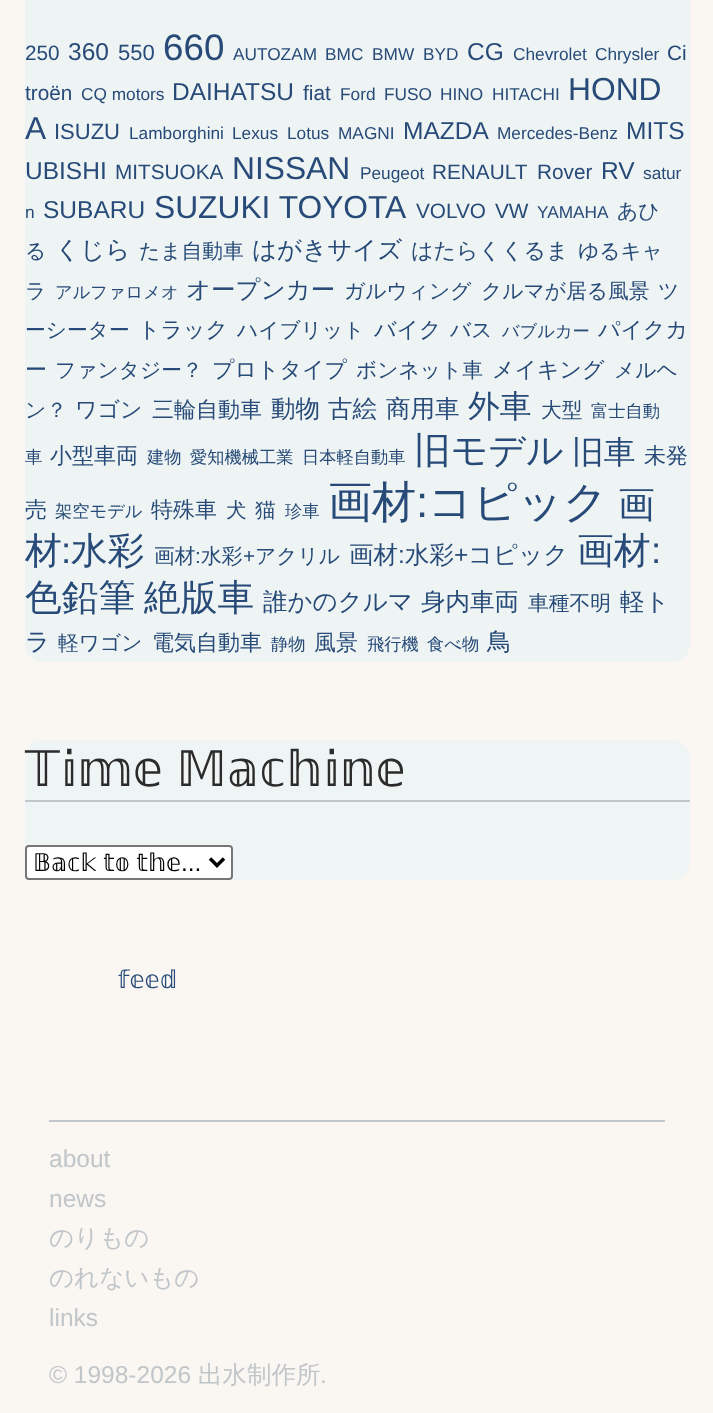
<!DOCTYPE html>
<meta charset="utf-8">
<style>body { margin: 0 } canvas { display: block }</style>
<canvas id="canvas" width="713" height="1413"></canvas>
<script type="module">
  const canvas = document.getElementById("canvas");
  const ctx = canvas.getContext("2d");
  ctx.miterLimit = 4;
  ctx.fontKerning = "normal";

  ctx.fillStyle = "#faf6f2";
  ctx.fillRect(0, 0, 713, 1413);
  ctx.fillStyle = "#eef4f3";
  ctx.beginPath();
  ctx.roundRect(25, -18, 665, 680, 18);
  ctx.fill();
  ctx.font = "20.75px Liberation Sans";
  ctx.fillStyle = "#274a78";
  ctx.fillText("250", 25, 60);
  ctx.font = "24.5px Liberation Sans";
  ctx.fillText("360", 68, 60);
  ctx.font = "22px Liberation Sans";
  ctx.fillText("550", 118, 60);
  ctx.font = "36.75px Liberation Sans";
  ctx.fillText("660", 163, 60);
  ctx.font = "17.25px Liberation Sans";
  ctx.fillText("AUTOZAM", 233, 60);
  ctx.fillText("BMC", 325, 60);
  ctx.fillText("BMW", 372, 60);
  ctx.fillText("BYD", 423, 60);
  ctx.font = "24.5px Liberation Sans";
  ctx.fillText("CG", 467, 60);
  ctx.font = "17.25px Liberation Sans";
  ctx.fillText("Chevrolet", 513, 60);
  ctx.fillText("Chrysler", 595, 60);
  ctx.font = "20.75px Liberation Sans";
  ctx.fillText("Ci", 667, 60);
  ctx.fillText("troën", 25, 100);
  ctx.font = "17.25px Liberation Sans";
  ctx.fillText("CQ motors", 81, 100);
  ctx.font = "24.5px Liberation Sans";
  ctx.fillText("DAIHATSU", 172, 100);
  ctx.font = "20.75px Liberation Sans";
  ctx.fillText("fiat", 303, 100);
  ctx.font = "17.25px Liberation Sans";
  ctx.fillText("Ford", 340, 100);
  ctx.fillText("FUSO", 384, 100);
  ctx.fillText("HINO", 440, 100);
  ctx.fillText("HITACHI", 492, 100);
  ctx.font = "31.75px Liberation Sans";
  ctx.fillText("HOND", 568, 100);
  ctx.fillText("A", 25, 139);
  ctx.font = "22px Liberation Sans";
  ctx.fillText("ISUZU", 54, 139);
  ctx.font = "17.25px Liberation Sans";
  ctx.fillText("Lamborghini", 129, 139);
  ctx.fillText("Lexus", 232, 139);
  ctx.fillText("Lotus", 287, 139);
  ctx.fillText("MAGNI", 338, 139);
  ctx.font = "24.5px Liberation Sans";
  ctx.fillText("MAZDA", 403, 139);
  ctx.font = "17.25px Liberation Sans";
  ctx.fillText("Mercedes-Benz", 497, 139);
  ctx.font = "24.5px Liberation Sans";
  ctx.fillText("MITS", 626, 139);
  ctx.fillText("UBISHI", 25, 179);
  ctx.font = "20.75px Liberation Sans";
  ctx.fillText("MITSUOKA", 115, 179);
  ctx.font = "31.75px Liberation Sans";
  ctx.fillText("NISSAN", 232, 179);
  ctx.font = "17.25px Liberation Sans";
  ctx.fillText("Peugeot", 360, 179);
  ctx.font = "20.75px Liberation Sans";
  ctx.fillText("RENAULT", 432, 179);
  ctx.fillText("Rover", 537, 179);
  ctx.font = "24.5px Liberation Sans";
  ctx.fillText("RV", 601, 179);
  ctx.font = "17.25px Liberation Sans";
  ctx.fillText("satur", 643, 179);
  ctx.fillText("n", 25, 218);
  ctx.font = "24.5px Liberation Sans";
  ctx.fillText("SUBARU", 43, 218);
  ctx.font = "31.75px Liberation Sans";
  ctx.fillText("SUZUKI TOYOTA", 154, 218);
  ctx.font = "20.75px Liberation Sans";
  ctx.fillText("VOLVO", 416, 218);
  ctx.fillText("VW", 495, 218);
  ctx.font = "17.25px Liberation Sans";
  ctx.fillText("YAMAHA", 537, 218);
  ctx.font = "500 20.75px WenQuanYi Zen Hei";
  ctx.fillText("あひ", 617, 218);
  ctx.fillText("る", 25, 258);
  ctx.font = "500 24.5px WenQuanYi Zen Hei";
  ctx.fillText("くじら", 55, 258);
  ctx.font = "500 20.75px WenQuanYi Zen Hei";
  ctx.fillText("たま自動車", 139, 258);
  ctx.font = "500 24.5px WenQuanYi Zen Hei";
  ctx.fillText("はがきサイズ", 252, 258);
  ctx.font = "500 22px WenQuanYi Zen Hei";
  ctx.fillText("はたらくくるま", 411, 258);
  ctx.font = "500 20.75px WenQuanYi Zen Hei";
  ctx.fillText("ゆるキャ", 578, 258);
  ctx.fillText("ラ", 25, 298);
  ctx.font = "500 17.25px WenQuanYi Zen Hei";
  ctx.fillText("アルファロメオ", 55, 298);
  ctx.font = "500 24.5px WenQuanYi Zen Hei";
  ctx.fillText("オープンカー", 186, 298);
  ctx.font = "500 20.75px WenQuanYi Zen Hei";
  ctx.fillText("ガルウィング", 344, 298);
  ctx.fillText("クルマが居る風景", 481, 298);
  ctx.fillText("ツ", 658, 298);
  ctx.fillText("ーシーター", 25, 337);
  ctx.font = "500 22px WenQuanYi Zen Hei";
  ctx.fillText("トラック", 138, 337);
  ctx.font = "500 20.75px WenQuanYi Zen Hei";
  ctx.fillText("ハイブリット", 237, 337);
  ctx.font = "500 22px WenQuanYi Zen Hei";
  ctx.fillText("バイク", 374, 337);
  ctx.font = "500 20.75px WenQuanYi Zen Hei";
  ctx.fillText("バス", 450, 337);
  ctx.font = "500 17.25px WenQuanYi Zen Hei";
  ctx.fillText("バブルカー", 502, 337);
  ctx.font = "500 22px WenQuanYi Zen Hei";
  ctx.fillText("パイクカ", 598, 337);
  ctx.fillText("ー", 25, 377);
  ctx.font = "500 20.75px WenQuanYi Zen Hei";
  ctx.fillText("ファンタジー？", 55, 377);
  ctx.font = "500 22px WenQuanYi Zen Hei";
  ctx.fillText("プロトタイプ", 212, 377);
  ctx.font = "500 20.75px WenQuanYi Zen Hei";
  ctx.fillText("ボンネット車", 356, 377);
  ctx.font = "500 22px WenQuanYi Zen Hei";
  ctx.fillText("メイキング", 492, 377);
  ctx.font = "500 20.75px WenQuanYi Zen Hei";
  ctx.fillText("メルヘ", 614, 377);
  ctx.fillText("ン？", 25, 417);
  ctx.font = "500 22px WenQuanYi Zen Hei";
  ctx.fillText("ワゴン", 75, 417);
  ctx.fillText("三輪自動車", 152, 417);
  ctx.font = "500 24.5px WenQuanYi Zen Hei";
  ctx.fillText("動物", 271, 417);
  ctx.fillText("古絵", 328, 417);
  ctx.fillText("商用車", 386, 417);
  ctx.font = "500 31.75px WenQuanYi Zen Hei";
  ctx.fillText("外車", 468, 417);
  ctx.font = "500 20.75px WenQuanYi Zen Hei";
  ctx.fillText("大型", 541, 417);
  ctx.font = "500 17.25px WenQuanYi Zen Hei";
  ctx.fillText("富士自動", 591, 417);
  ctx.fillText("車", 25, 463);
  ctx.font = "500 22px WenQuanYi Zen Hei";
  ctx.fillText("小型車両", 50, 463);
  ctx.font = "500 17.25px WenQuanYi Zen Hei";
  ctx.fillText("建物", 147, 463);
  ctx.fillText("愛知機械工業", 190, 463);
  ctx.fillText("日本軽自動車", 302, 463);
  ctx.font = "500 36.75px WenQuanYi Zen Hei";
  ctx.fillText("旧モデル", 414, 463);
  ctx.font = "500 31.75px WenQuanYi Zen Hei";
  ctx.fillText("旧車", 572, 463);
  ctx.font = "500 22px WenQuanYi Zen Hei";
  ctx.fillText("未発", 644, 463);
  ctx.fillText("売", 25, 517);
  ctx.font = "500 17.25px WenQuanYi Zen Hei";
  ctx.fillText("架空モデル", 55, 517);
  ctx.font = "500 22px WenQuanYi Zen Hei";
  ctx.fillText("特殊車", 151, 517);
  ctx.font = "500 20.75px WenQuanYi Zen Hei";
  ctx.fillText("犬", 226, 517);
  ctx.fillText("猫", 255, 517);
  ctx.font = "500 17.25px WenQuanYi Zen Hei";
  ctx.fillText("珍車", 285, 517);
  ctx.font = "500 44px WenQuanYi Zen Hei";
  ctx.fillText("画材", 328, 517);
  ctx.font = "44px Liberation Sans";
  ctx.fillText(":", 416, 517);
  ctx.font = "500 44px WenQuanYi Zen Hei";
  ctx.fillText("コピック", 428, 517);
  ctx.font = "500 36.75px WenQuanYi Zen Hei";
  ctx.fillText("画", 618, 517);
  ctx.fillText("材", 25, 563);
  ctx.font = "36.75px Liberation Sans";
  ctx.fillText(":", 61, 563);
  ctx.font = "500 36.75px WenQuanYi Zen Hei";
  ctx.fillText("水彩", 71, 563);
  ctx.font = "500 20.75px WenQuanYi Zen Hei";
  ctx.fillText("画材", 154, 563);
  ctx.font = "20.75px Liberation Sans";
  ctx.fillText(":", 195, 563);
  ctx.font = "500 20.75px WenQuanYi Zen Hei";
  ctx.fillText("水彩", 201, 563);
  ctx.font = "20.75px Liberation Sans";
  ctx.fillText("+", 243, 563);
  ctx.font = "500 20.75px WenQuanYi Zen Hei";
  ctx.fillText("アクリル", 255, 563);
  ctx.font = "500 24.5px WenQuanYi Zen Hei";
  ctx.fillText("画材", 349, 563);
  ctx.font = "24.5px Liberation Sans";
  ctx.fillText(":", 398, 563);
  ctx.font = "500 24.5px WenQuanYi Zen Hei";
  ctx.fillText("水彩", 405, 563);
  ctx.font = "24.5px Liberation Sans";
  ctx.fillText("+", 454, 563);
  ctx.font = "500 24.5px WenQuanYi Zen Hei";
  ctx.fillText("コピック", 468, 563);
  ctx.font = "500 36.75px WenQuanYi Zen Hei";
  ctx.fillText("画材", 577, 563);
  ctx.font = "36.75px Liberation Sans";
  ctx.fillText(":", 651, 563);
  ctx.font = "500 36.75px WenQuanYi Zen Hei";
  ctx.fillText("色鉛筆", 25, 610);
  ctx.fillText("絶版車", 144, 610);
  ctx.font = "500 24.5px WenQuanYi Zen Hei";
  ctx.fillText("誰かのクルマ", 263, 610);
  ctx.fillText("身内車両", 421, 610);
  ctx.font = "500 20.75px WenQuanYi Zen Hei";
  ctx.fillText("車種不明", 528, 610);
  ctx.font = "500 24.5px WenQuanYi Zen Hei";
  ctx.fillText("軽ト", 620, 610);
  ctx.fillText("ラ", 25, 650);
  ctx.font = "500 20.75px WenQuanYi Zen Hei";
  ctx.fillText("軽ワゴン", 58, 650);
  ctx.font = "500 22px WenQuanYi Zen Hei";
  ctx.fillText("電気自動車", 152, 650);
  ctx.font = "500 17.25px WenQuanYi Zen Hei";
  ctx.fillText("静物", 271, 650);
  ctx.font = "500 22px WenQuanYi Zen Hei";
  ctx.fillText("風景", 314, 650);
  ctx.font = "500 17.25px WenQuanYi Zen Hei";
  ctx.fillText("飛行機", 367, 650);
  ctx.fillText("食べ物", 427, 650);
  ctx.font = "500 24.5px WenQuanYi Zen Hei";
  ctx.fillText("鳥", 487, 650);
  ctx.fillStyle = "#eff4f4";
  ctx.beginPath();
  ctx.roundRect(25, 740, 665, 140, 18);
  ctx.fill();
  ctx.fillStyle = "#c0c6c9";
  ctx.fillRect(25, 800, 665, 2);
  ctx.wordSpacing = "-2px";
  ctx.font = "49px DejaVu Sans";
  ctx.fillStyle = "#2b2b2b";
  ctx.fillText("𝕋𝕚𝕞𝕖 𝕄𝕒𝕔𝕙𝕚𝕟𝕖", 25, 786);
  ctx.fillStyle = "#ffffff";
  ctx.beginPath();
  ctx.roundRect(26, 846, 206, 33, 3);
  ctx.fill();
  ctx.strokeStyle = "#767676";
  ctx.lineWidth = 2;
  ctx.stroke();
  ctx.beginPath();
  ctx.moveTo(210, 858.5);
  ctx.lineTo(217, 865.5);
  ctx.lineTo(224, 858.5);
  ctx.strokeStyle = "#000000";
  ctx.lineWidth = 3.5;
  ctx.stroke();
  ctx.wordSpacing = "-1px";
  ctx.font = "24.5px DejaVu Sans";
  ctx.fillStyle = "#000000";
  ctx.fillText("𝔹𝕒𝕔𝕜 𝕥𝕠 𝕥𝕙𝕖", 33, 871);
  ctx.wordSpacing = "0px";
  ctx.font = "24.5px Liberation Sans";
  ctx.fillText("...", 181, 871);
  ctx.font = "24.5px DejaVu Sans";
  ctx.fillStyle = "#274a78";
  ctx.fillText("𝕗𝕖𝕖𝕕", 118, 988);
  ctx.fillStyle = "#c0c6c9";
  ctx.fillRect(49, 1120, 616, 2);
  ctx.font = "24.5px Liberation Sans";
  ctx.fillText("about", 49, 1167);
  ctx.fillText("news", 49, 1207);
  ctx.font = "500 24.5px WenQuanYi Zen Hei";
  ctx.fillText("のりもの", 49, 1246);
  ctx.fillText("のれないもの", 49, 1286);
  ctx.font = "24.5px Liberation Sans";
  ctx.fillText("links", 49, 1326);
  ctx.fillText("© 1998-2026", 49, 1383);
  ctx.font = "500 24.5px WenQuanYi Zen Hei";
  ctx.fillText("出水制作所", 198, 1383);
  ctx.font = "24.5px Liberation Sans";
  ctx.fillText(".", 320, 1383);
</script>
